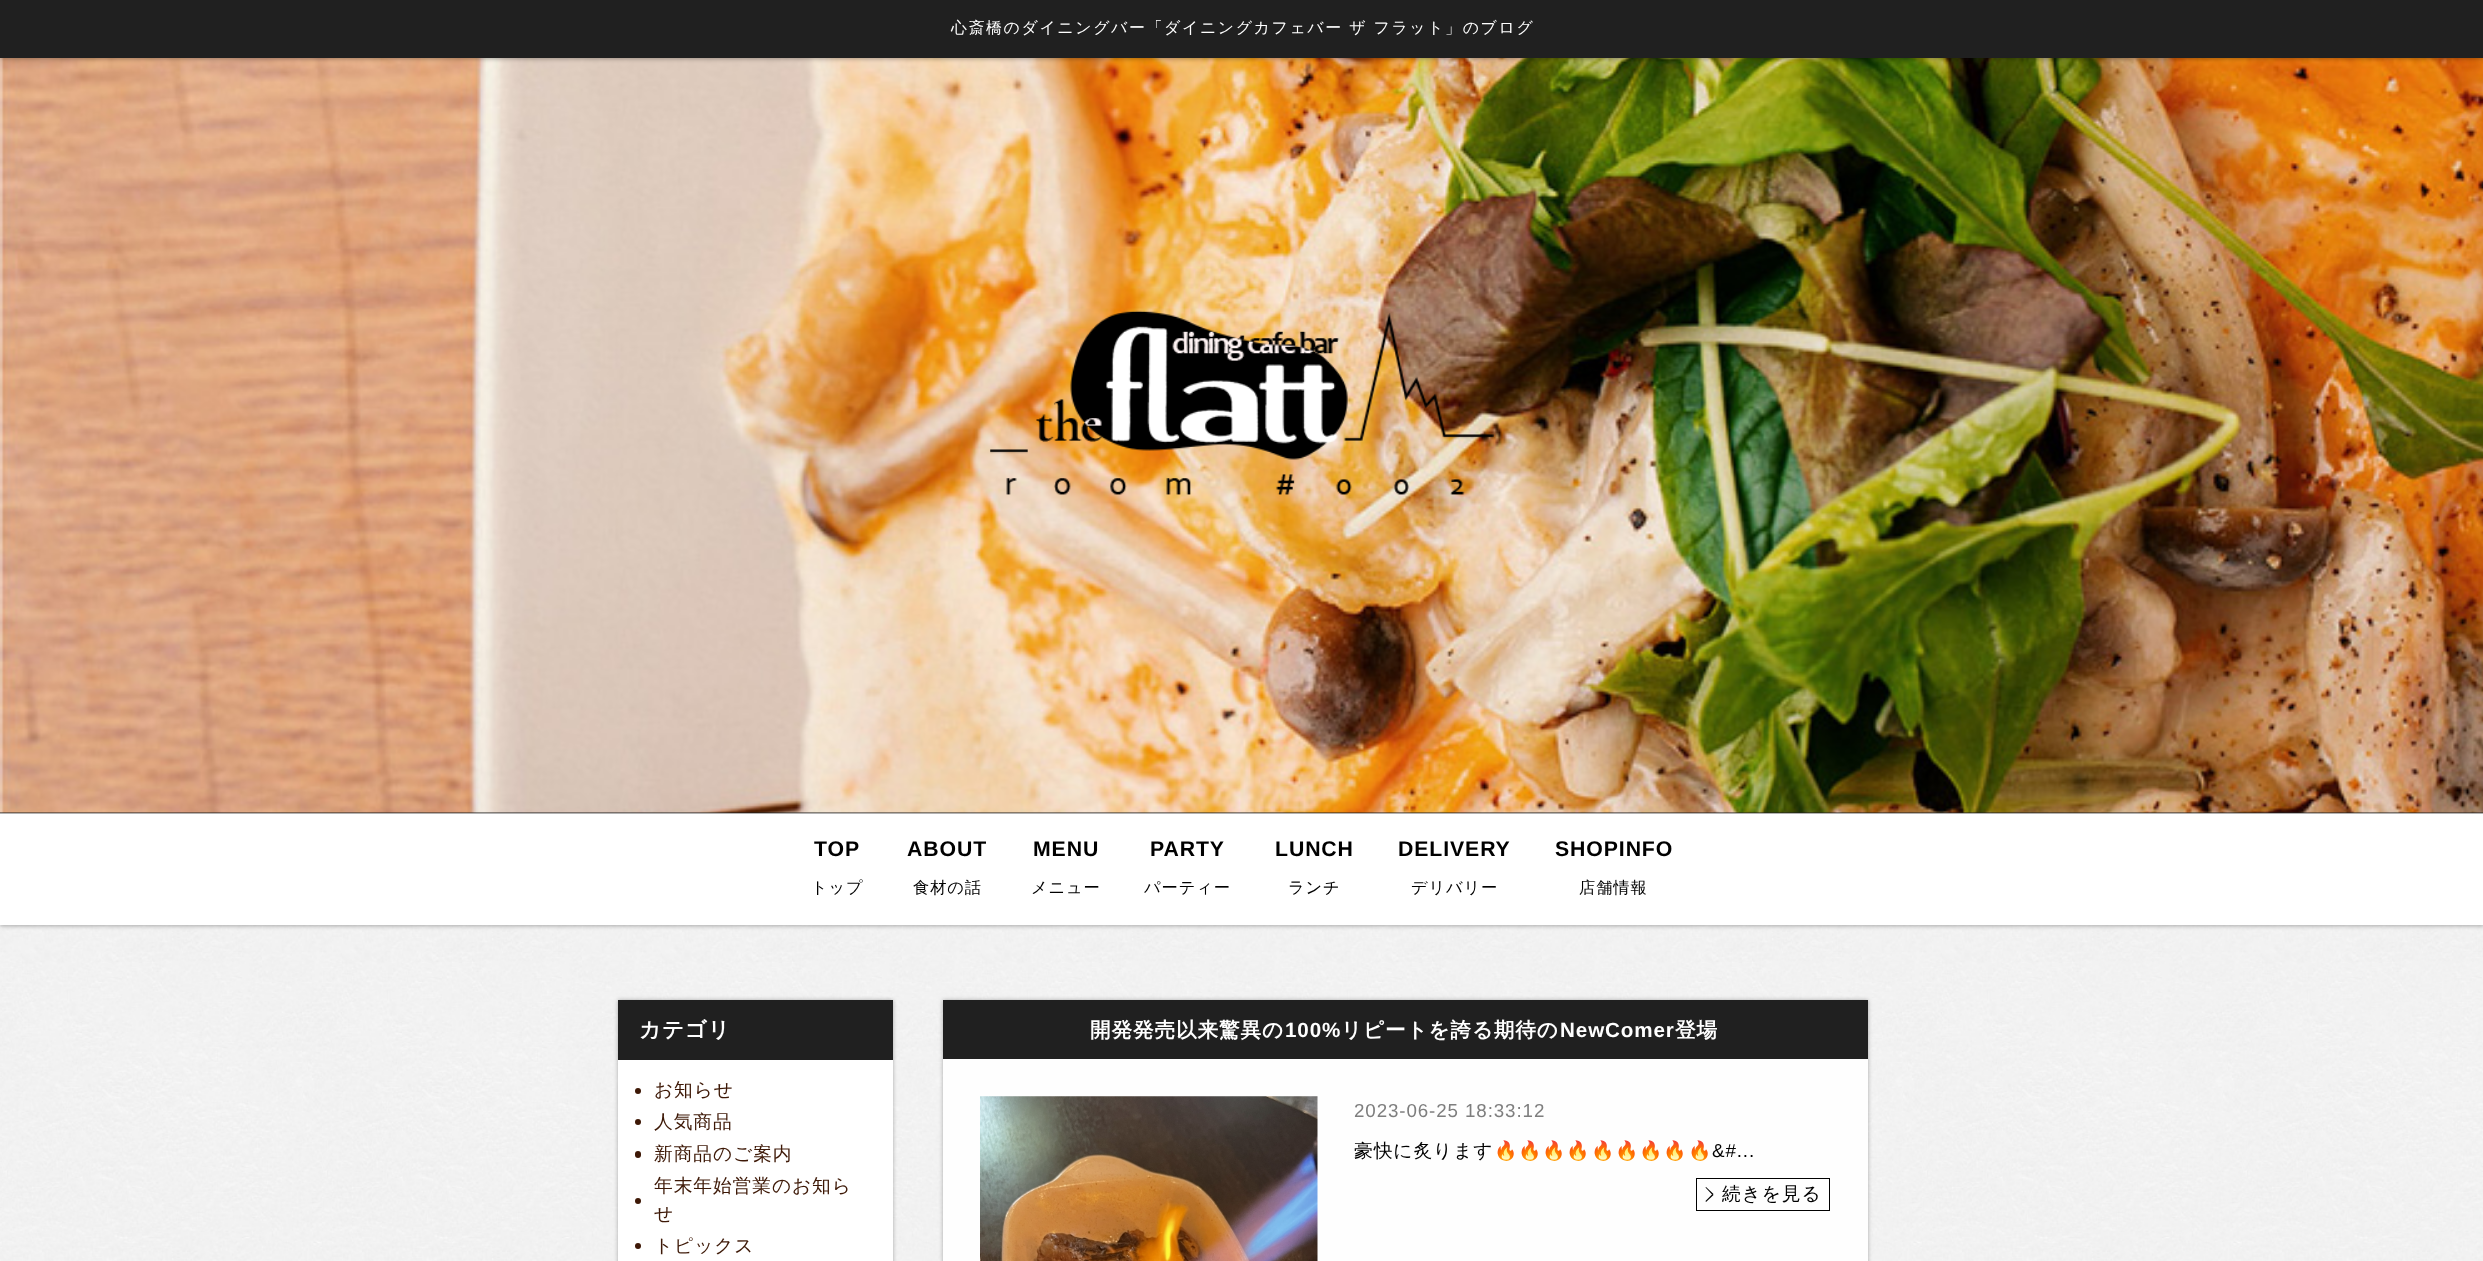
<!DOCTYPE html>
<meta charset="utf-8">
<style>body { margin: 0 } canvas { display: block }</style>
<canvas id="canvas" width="2483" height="1261"></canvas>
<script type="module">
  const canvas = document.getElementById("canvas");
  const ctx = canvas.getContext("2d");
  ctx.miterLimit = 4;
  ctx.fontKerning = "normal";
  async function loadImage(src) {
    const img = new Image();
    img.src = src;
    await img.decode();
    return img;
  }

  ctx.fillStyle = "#ffffff";
  ctx.fillRect(0, 0, 2483, 1261);
  ctx.drawImage(await loadImage("img1.png"), 0, 925, 2483, 336);
  ctx.fillStyle = "rgba(0, 0, 0, 0.3)";
  ctx.filter = "blur(2px)";
  ctx.beginPath();
  ctx.rect(0, 814, 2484, 112);
  ctx.fill();
  ctx.filter = "none";
  ctx.fillStyle = "#ffffff";
  ctx.fillRect(0, 813, 2483, 112);
  ctx.fillStyle = "rgba(0, 0, 0, 0.3)";
  ctx.filter = "blur(0.5px)";
  ctx.beginPath();
  ctx.rect(0, 1, 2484, 813);
  ctx.fill();
  ctx.filter = "none";
  ctx.fillStyle = "#202020";
  ctx.fillRect(0, 812, 2483, 1);
  ctx.drawImage(await loadImage("img2.png"), 0, 58, 2483, 755);
  ctx.fillStyle = "rgba(0, 0, 0, 0.3)";
  ctx.filter = "blur(2px)";
  ctx.beginPath();
  ctx.rect(0, 1, 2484, 58);
  ctx.fill();
  ctx.filter = "none";
  ctx.fillStyle = "#202020";
  ctx.fillRect(0, 0, 2483, 58);
  ctx.letterSpacing = "1.6px";
  ctx.font = "500 15.95px WenQuanYi Zen Hei";
  ctx.fillStyle = "#ffffff";
  ctx.fillText("心斎橋のダイニングバー「ダイニングカフェバー ザ フラット」のブログ", 951, 33);
  ctx.drawImage(await loadImage("img3.png"), 990, 310, 504, 185);
  ctx.letterSpacing = "0.9px";
  ctx.font = "bold 21.25px Liberation Sans";
  ctx.fillStyle = "#000000";
  ctx.fillText("TOP", 814, 856);
  ctx.font = "500 16.25px WenQuanYi Zen Hei";
  ctx.fillText("トップ", 811, 893);
  ctx.font = "bold 21.25px Liberation Sans";
  ctx.fillText("ABOUT", 907, 856);
  ctx.font = "500 16.25px WenQuanYi Zen Hei";
  ctx.fillText("食材の話", 913, 893);
  ctx.font = "bold 21.25px Liberation Sans";
  ctx.fillText("MENU", 1033, 856);
  ctx.font = "500 16.25px WenQuanYi Zen Hei";
  ctx.fillText("メニュー", 1031, 893);
  ctx.font = "bold 21.25px Liberation Sans";
  ctx.fillText("PARTY", 1150, 856);
  ctx.font = "500 16.25px WenQuanYi Zen Hei";
  ctx.fillText("パーティー", 1144, 893);
  ctx.font = "bold 21.25px Liberation Sans";
  ctx.fillText("LUNCH", 1275, 856);
  ctx.font = "500 16.25px WenQuanYi Zen Hei";
  ctx.fillText("ランチ", 1288, 893);
  ctx.font = "bold 21.25px Liberation Sans";
  ctx.fillText("DELIVERY", 1398, 856);
  ctx.font = "500 16.25px WenQuanYi Zen Hei";
  ctx.fillText("デリバリー", 1411, 893);
  ctx.font = "bold 21.25px Liberation Sans";
  ctx.fillText("SHOPINFO", 1555, 856);
  ctx.font = "500 16.25px WenQuanYi Zen Hei";
  ctx.fillText("店舗情報", 1579, 893);
  ctx.fillStyle = "rgba(0, 0, 0, 0.3)";
  ctx.filter = "blur(2px)";
  ctx.beginPath();
  ctx.rect(618, 1000, 275, 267);
  ctx.fill();
  ctx.filter = "none";
  ctx.fillStyle = "#ffffff";
  ctx.fillRect(618, 1060, 275, 201);
  ctx.fillStyle = "#202020";
  ctx.fillRect(618, 1000, 275, 60);
  ctx.font = "bold 21.5px WenQuanYi Zen Hei";
  ctx.fillStyle = "#ffffff";
  ctx.fillText("カテゴリ", 639, 1037);
  ctx.fillStyle = "#3d1806";
  ctx.beginPath();
  ctx.arc(638, 1091, 3, 0, Math.PI * 2);
  ctx.fill();
  ctx.font = "500 18.75px WenQuanYi Zen Hei";
  ctx.fillText("お知らせ", 654, 1096);
  ctx.beginPath();
  ctx.arc(638, 1122, 3, 0, Math.PI * 2);
  ctx.fill();
  ctx.fillText("人気商品", 654, 1128);
  ctx.beginPath();
  ctx.roundRect(635, 1151, 6, 7, 3);
  ctx.fill();
  ctx.fillText("新商品のご案内", 654, 1160);
  ctx.fillText("年末年始営業のお知ら", 654, 1192);
  ctx.beginPath();
  ctx.arc(638, 1201, 3, 0, Math.PI * 2);
  ctx.fill();
  ctx.fillText("せ", 654, 1220);
  ctx.beginPath();
  ctx.arc(638, 1246, 3, 0, Math.PI * 2);
  ctx.fill();
  ctx.fillText("トピックス", 654, 1252);
  ctx.fillStyle = "rgba(0, 0, 0, 0.3)";
  ctx.filter = "blur(2px)";
  ctx.beginPath();
  ctx.rect(943, 1000, 925, 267);
  ctx.fill();
  ctx.filter = "none";
  ctx.fillStyle = "#fefefe";
  ctx.fillRect(943, 1059, 925, 202);
  ctx.fillStyle = "#202020";
  ctx.fillRect(943, 1000, 925, 59);
  ctx.font = "bold 20.6px WenQuanYi Zen Hei";
  ctx.fillStyle = "#ffffff";
  ctx.fillText("開発発売以来驚異の", 1090, 1037);
  ctx.font = "bold 20.6px Liberation Sans";
  ctx.fillText("100%", 1285, 1037);
  ctx.font = "bold 20.6px WenQuanYi Zen Hei";
  ctx.fillText("リピートを誇る期待の", 1341, 1037);
  ctx.font = "bold 20.6px Liberation Sans";
  ctx.fillText("NewComer", 1560, 1037);
  ctx.font = "bold 20.6px WenQuanYi Zen Hei";
  ctx.fillText("登場", 1675, 1037);
  ctx.drawImage(await loadImage("img4.png"), 980, 1096, 338, 165);
  ctx.font = "18.75px Liberation Sans";
  ctx.fillStyle = "#7e7e7e";
  ctx.fillText("2023-06-25 18:33:12", 1354, 1117);
  ctx.font = "500 18.75px WenQuanYi Zen Hei";
  ctx.fillStyle = "#000000";
  ctx.fillText("豪快に炙ります", 1354, 1157);
  ctx.font = "18.75px Noto Color Emoji";
  ctx.fillText("🔥🔥🔥🔥🔥🔥🔥🔥🔥", 1494, 1157);
  ctx.font = "18.75px Liberation Sans";
  ctx.fillText("&#...", 1712, 1157);
  ctx.save();
  ctx.beginPath();
  ctx.moveTo(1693, 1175);
  ctx.lineTo(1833, 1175);
  ctx.lineTo(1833, 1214);
  ctx.lineTo(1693, 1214);
  ctx.closePath();
  ctx.moveTo(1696, 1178);
  ctx.lineTo(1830, 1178);
  ctx.lineTo(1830, 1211);
  ctx.lineTo(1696, 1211);
  ctx.closePath();
  ctx.clip("evenodd");
  ctx.fillStyle = "rgba(0, 0, 0, 0.3)";
  ctx.filter = "blur(0.5px)";
  ctx.beginPath();
  ctx.rect(1696, 1178, 134, 33);
  ctx.fill();
  ctx.filter = "none";
  ctx.restore();
  ctx.strokeStyle = "#010101";
  ctx.strokeRect(1696.5, 1178.5, 133, 32);
  ctx.fillStyle = "#010101";
  ctx.beginPath();
  ctx.moveTo(1706, 1187);
  ctx.lineTo(1713.5, 1194);
  ctx.lineTo(1712.5, 1195);
  ctx.lineTo(1705.5, 1187.5);
  ctx.closePath();
  ctx.fill();
  ctx.font = "500 18.75px WenQuanYi Zen Hei";
  ctx.fillStyle = "#000000";
  ctx.fillText("続きを見る", 1722, 1200);
  ctx.fillStyle = "#010101";
  ctx.beginPath();
  ctx.moveTo(1705.5, 1201);
  ctx.lineTo(1712.5, 1194);
  ctx.lineTo(1713.5, 1195);
  ctx.lineTo(1706, 1202);
  ctx.closePath();
  ctx.fill();
</script>
